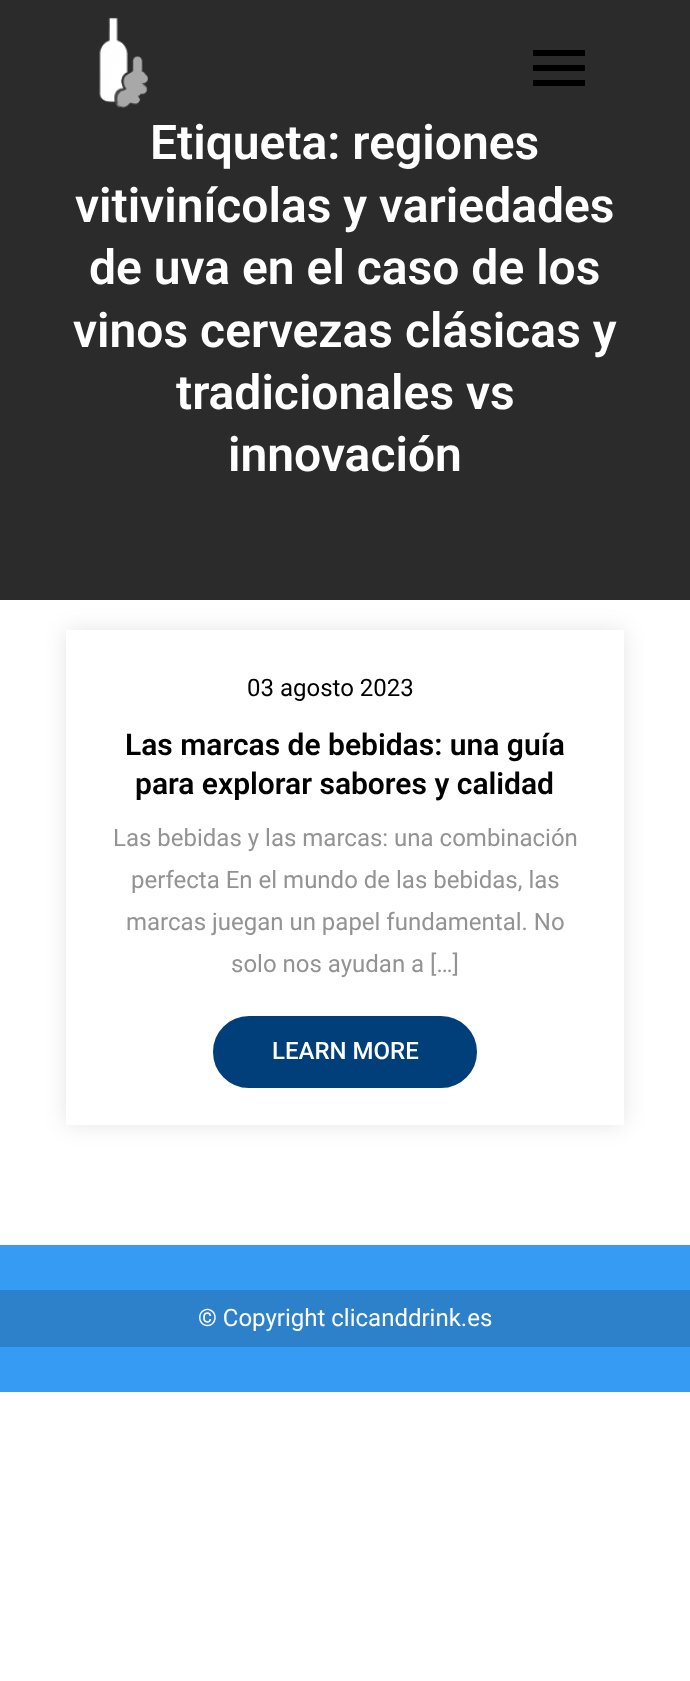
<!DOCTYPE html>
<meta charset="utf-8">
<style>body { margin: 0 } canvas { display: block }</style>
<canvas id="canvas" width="690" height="1681"></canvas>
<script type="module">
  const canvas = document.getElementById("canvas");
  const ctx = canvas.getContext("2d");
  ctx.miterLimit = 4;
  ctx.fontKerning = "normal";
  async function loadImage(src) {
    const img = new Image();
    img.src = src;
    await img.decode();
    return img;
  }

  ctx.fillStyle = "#ffffff";
  ctx.fillRect(0, 0, 690, 1681);
  ctx.fillStyle = "#2b2b2b";
  ctx.fillRect(0, 0, 690, 600);
  ctx.drawImage(await loadImage("img1.png"), 99, 17, 49, 91);
  ctx.fillStyle = "#000000";
  ctx.fillRect(533, 65, 52, 6);
  ctx.fillRect(533, 50, 52, 6);
  ctx.fillRect(533, 80, 52, 6);
  ctx.font = "600 48px Roboto";
  ctx.fillStyle = "#ffffff";
  ctx.fillText("Etiqueta: regiones", 150, 159);
  ctx.fillText("vitivinícolas y variedades", 75, 222);
  ctx.fillText("de uva en el caso de los", 89, 284);
  ctx.fillText("vinos cervezas clásicas y", 73, 347);
  ctx.fillText("tradicionales vs", 176, 409);
  ctx.fillText("innovación", 228, 471);
  ctx.save();
  ctx.beginPath();
  ctx.moveTo(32, 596);
  ctx.lineTo(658, 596);
  ctx.lineTo(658, 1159);
  ctx.lineTo(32, 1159);
  ctx.closePath();
  ctx.moveTo(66, 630);
  ctx.lineTo(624, 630);
  ctx.lineTo(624, 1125);
  ctx.lineTo(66, 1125);
  ctx.closePath();
  ctx.clip("evenodd");
  ctx.fillStyle = "rgba(0, 0, 0, 0.1)";
  ctx.filter = "blur(11px)";
  ctx.beginPath();
  ctx.rect(66, 630, 558, 495);
  ctx.fill();
  ctx.filter = "none";
  ctx.restore();
  ctx.font = "24px Roboto";
  ctx.fillStyle = "#000000";
  ctx.fillText("03 agosto 2023", 247, 696);
  ctx.font = "600 30px Roboto";
  ctx.fillText("Las marcas de bebidas: una guía", 125, 755);
  ctx.fillText("para explorar sabores y calidad", 135, 794);
  ctx.font = "24px Roboto";
  ctx.fillStyle = "#939393";
  ctx.fillText("Las bebidas y las marcas: una combinación", 113, 846);
  ctx.fillText("perfecta En el mundo de las bebidas, las", 131, 888);
  ctx.fillText("marcas juegan un papel fundamental. No", 126, 930);
  ctx.fillText("solo nos ayudan a […]", 231, 972);
  ctx.fillStyle = "#013f7a";
  ctx.beginPath();
  ctx.roundRect(214.5, 1017.5, 261, 69, 34.5);
  ctx.fill();
  ctx.strokeStyle = "#013f7a";
  ctx.lineWidth = 3;
  ctx.stroke();
  ctx.font = "500 24px Roboto";
  ctx.fillStyle = "#ffffff";
  ctx.fillText("LEARN MORE", 272, 1059);
  ctx.fillStyle = "#369bf3";
  ctx.fillRect(0, 1245, 690, 147);
  ctx.fillStyle = "#2d81ca";
  ctx.fillRect(0, 1290, 690, 57);
  ctx.font = "24px Roboto";
  ctx.fillStyle = "#ffffff";
  ctx.fillText("© Copyright clicanddrink.es", 198, 1326);
</script>
